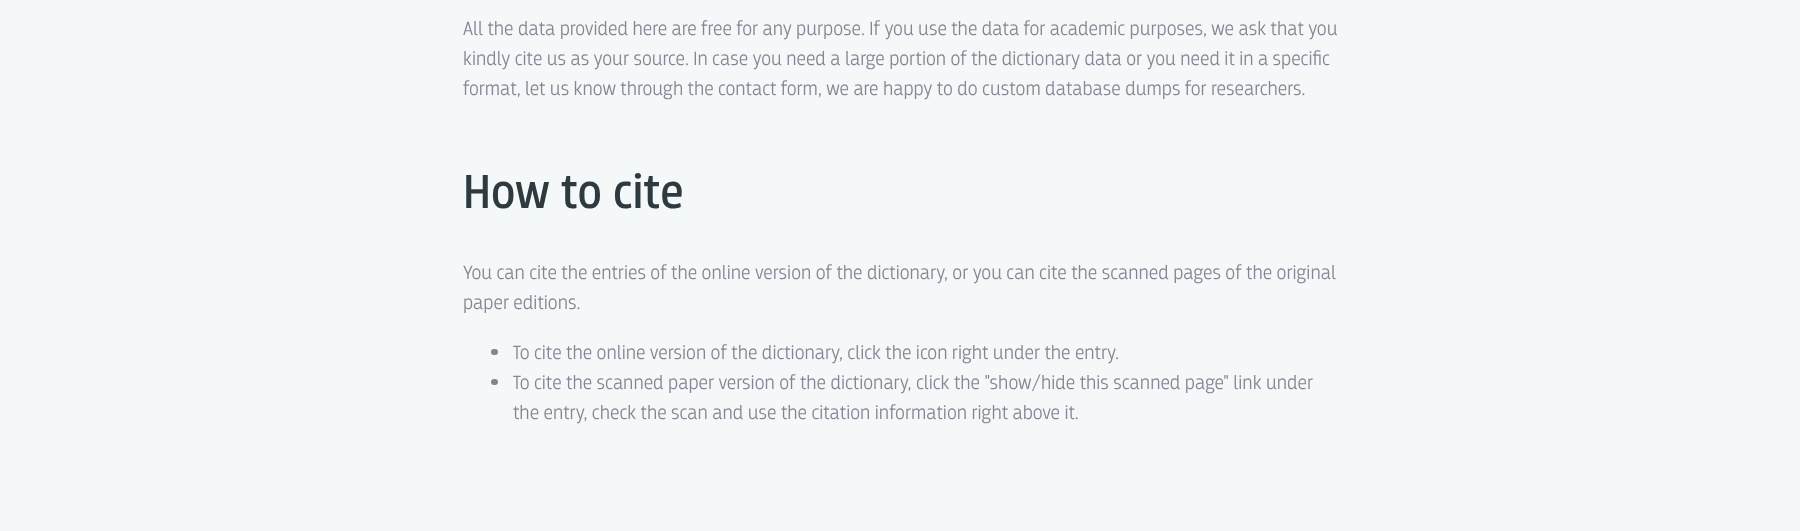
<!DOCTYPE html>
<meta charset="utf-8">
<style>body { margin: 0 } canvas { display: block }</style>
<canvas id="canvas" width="1800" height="531"></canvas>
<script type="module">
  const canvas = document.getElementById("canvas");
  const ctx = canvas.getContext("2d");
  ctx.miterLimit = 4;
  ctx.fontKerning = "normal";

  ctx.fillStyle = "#f5f8f8";
  ctx.fillRect(0, 0, 1800, 531);
  ctx.font = "300 20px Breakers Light";
  ctx.fillStyle = "#868493";
  ctx.fillText("All the data provided here are free for any purpose. If you use the data for academic purposes, we ask that you", 463, 35);
  ctx.fillText("kindly cite us as your source. In case you need a large portion of the dictionary data or you need it in a specific", 463, 65);
  ctx.fillText("format, let us know through the contact form, we are happy to do custom database dumps for researchers.", 463, 95);
  ctx.font = "50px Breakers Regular";
  ctx.fillStyle = "#2d3a3f";
  ctx.fillText("How to cite", 463, 208);
  ctx.font = "300 20px Breakers Light";
  ctx.fillStyle = "#868493";
  ctx.fillText("You can cite the entries of the online version of the dictionary, or you can cite the scanned pages of the original", 463, 279);
  ctx.fillText("paper editions.", 463, 309);
  ctx.beginPath();
  ctx.roundRect(491, 349, 7, 6, 3);
  ctx.fill();
  ctx.fillText("To cite the online version of the dictionary, click the icon right under the entry.", 513, 359);
  ctx.beginPath();
  ctx.roundRect(491, 379, 7, 6, 3);
  ctx.fill();
  ctx.fillText("To cite the scanned paper version of the dictionary, click the \"show/hide this scanned page\" link under", 513, 389);
  ctx.fillText("the entry, check the scan and use the citation information right above it.", 513, 419);
</script>
